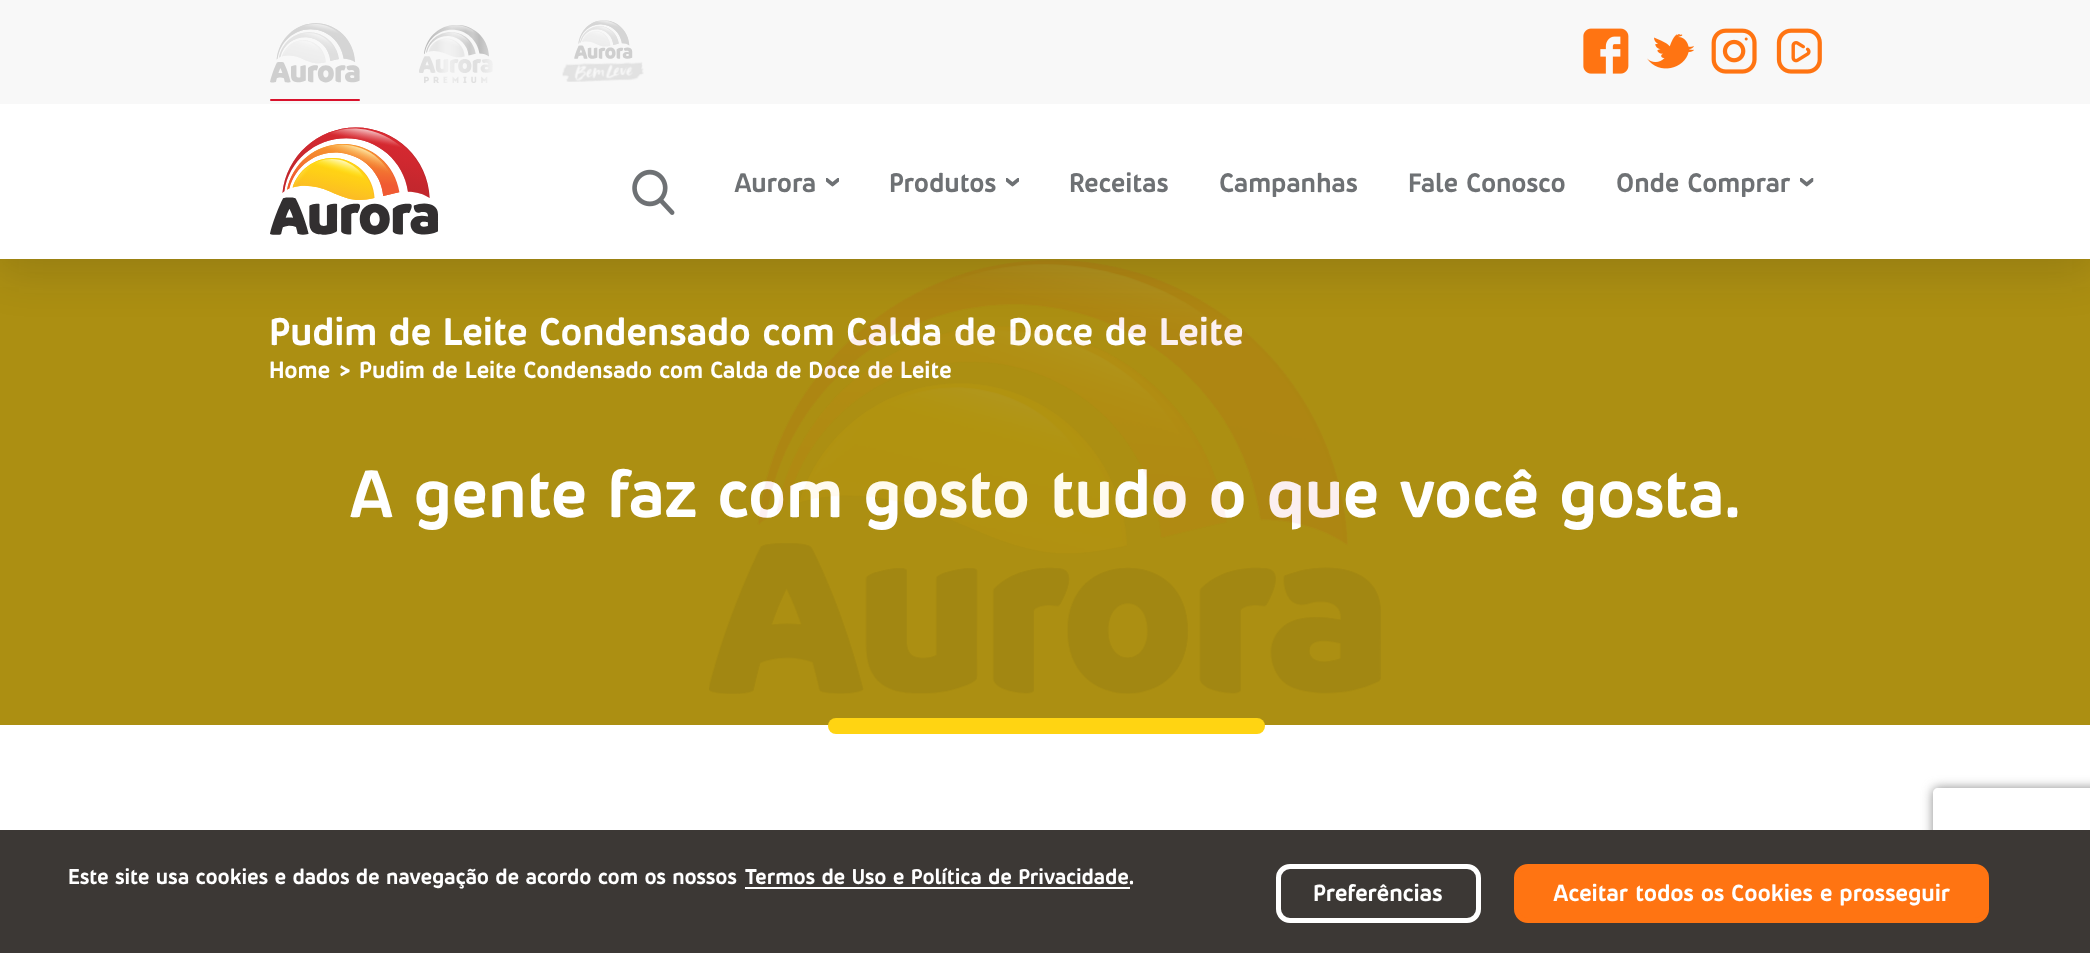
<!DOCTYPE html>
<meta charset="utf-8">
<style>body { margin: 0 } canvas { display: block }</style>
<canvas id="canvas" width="2090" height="953"></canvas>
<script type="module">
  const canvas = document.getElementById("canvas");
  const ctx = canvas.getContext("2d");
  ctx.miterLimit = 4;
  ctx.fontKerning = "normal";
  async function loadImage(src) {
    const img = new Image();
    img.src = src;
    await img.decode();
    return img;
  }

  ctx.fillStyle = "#ffffff";
  ctx.fillRect(0, 0, 2090, 953);
  ctx.fillStyle = "#ac8f12";
  ctx.fillRect(0, 259, 2090, 466);
  ctx.fillStyle = "rgba(18, 18, 18, 0.15)";
  ctx.filter = "blur(22.5px)";
  ctx.beginPath();
  ctx.rect(-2, 9, 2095, 263);
  ctx.fill();
  ctx.filter = "none";
  ctx.fillStyle = "#ffffff";
  ctx.fillRect(0, 104, 2090, 155);
  ctx.fillStyle = "#f8f8f8";
  ctx.fillRect(0, 0, 2090, 104);
  ctx.drawImage(await loadImage("img1.png"), 270, 23, 90, 60);
  ctx.fillStyle = "#d9122c";
  ctx.beginPath();
  ctx.roundRect(270, 99, 90, 2, 1);
  ctx.fill();
  ctx.drawImage(await loadImage("img2.png"), 419, 25, 74, 58);
  ctx.drawImage(await loadImage("img3.png"), 562, 20, 82, 62);
  ctx.drawImage(await loadImage("img4.png"), 1583, 28, 46, 46);
  ctx.drawImage(await loadImage("img5.png"), 1647, 34, 47, 35);
  ctx.drawImage(await loadImage("img6.png"), 1711, 28, 46, 46);
  ctx.drawImage(await loadImage("img7.png"), 1776, 28, 46, 46);
  ctx.drawImage(await loadImage("img8.png"), 270, 127, 168, 108);
  ctx.drawImage(await loadImage("img9.png"), 632, 169, 43, 46);
  ctx.font = "600 27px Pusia";
  ctx.fillStyle = "#6e7174";
  ctx.fillText("Aurora", 734, 192);
  ctx.drawImage(await loadImage("img10.png"), 826, 178, 13, 9);
  ctx.fillText("Produtos", 889, 192);
  ctx.drawImage(await loadImage("img11.png"), 1006, 178, 13, 9);
  ctx.fillText("Receitas", 1069, 192);
  ctx.fillText("Campanhas", 1219, 192);
  ctx.fillText("Fale Conosco", 1408, 192);
  ctx.fillText("Onde Comprar", 1616, 192);
  ctx.drawImage(await loadImage("img12.png"), 1800, 178, 14, 9);
  ctx.font = "600 38.8px Pusia";
  ctx.fillStyle = "#ffffff";
  ctx.fillText("Pudim de Leite Condensado com Calda de Doce de Leite", 269, 345);
  ctx.font = "600 23.6px Pusia";
  ctx.fillText("Pudim de Leite Condensado com Calda de Doce de Leite", 359, 378);
  ctx.font = "600 67.5px Pusia";
  ctx.fillText("A gente faz com gosto tudo o que você gosta.", 349, 517);
  ctx.drawImage(await loadImage("img13.png"), 709, 260, 672, 434);
  ctx.font = "600 23.6px Pusia";
  ctx.fillText("Home", 269, 378);
  ctx.fillText(">", 339, 378);
  ctx.fillStyle = "#ffd412";
  ctx.beginPath();
  ctx.roundRect(828, 718, 437, 16, 8);
  ctx.fill();
  ctx.save();
  ctx.beginPath();
  ctx.moveTo(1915, 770);
  ctx.lineTo(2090, 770);
  ctx.lineTo(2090, 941);
  ctx.lineTo(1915, 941);
  ctx.closePath();
  ctx.moveTo(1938, 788);
  ctx.lineTo(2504, 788);
  ctx.bezierCurveTo(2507, 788, 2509, 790, 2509, 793);
  ctx.lineTo(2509, 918);
  ctx.bezierCurveTo(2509, 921, 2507, 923, 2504, 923);
  ctx.lineTo(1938, 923);
  ctx.bezierCurveTo(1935, 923, 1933, 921, 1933, 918);
  ctx.lineTo(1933, 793);
  ctx.bezierCurveTo(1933, 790, 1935, 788, 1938, 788);
  ctx.closePath();
  ctx.clip("evenodd");
  ctx.fillStyle = "#898989";
  ctx.filter = "blur(5.5px)";
  ctx.beginPath();
  ctx.roundRect(1933, 788, 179, 135, 5);
  ctx.fill();
  ctx.filter = "none";
  ctx.restore();
  ctx.fillStyle = "#3c3835";
  ctx.fillRect(0, 830, 2090, 123);
  ctx.font = "600 21.6px Pusia";
  ctx.fillStyle = "#ffffff";
  ctx.fillText("Este site usa cookies e dados de navegação de acordo com os nossos", 68, 884);
  ctx.fillText("Termos de Uso e Política de Privacidade.", 745, 884);
  ctx.fillRect(745, 887, 385, 2);
  ctx.beginPath();
  ctx.roundRect(1278.5, 866.5, 200, 54, 11.5);
  ctx.strokeStyle = "#ffffff";
  ctx.lineWidth = 5;
  ctx.stroke();
  ctx.font = "600 23.6px Pusia";
  ctx.fillText("Preferências", 1313, 901);
  ctx.fillStyle = "#ff7412";
  ctx.beginPath();
  ctx.roundRect(1516.5, 866.5, 470, 54, 11.5);
  ctx.fill();
  ctx.strokeStyle = "#ff7412";
  ctx.stroke();
  ctx.fillStyle = "#ffffff";
  ctx.fillText("Aceitar todos os Cookies e prosseguir", 1553, 901);
</script>
